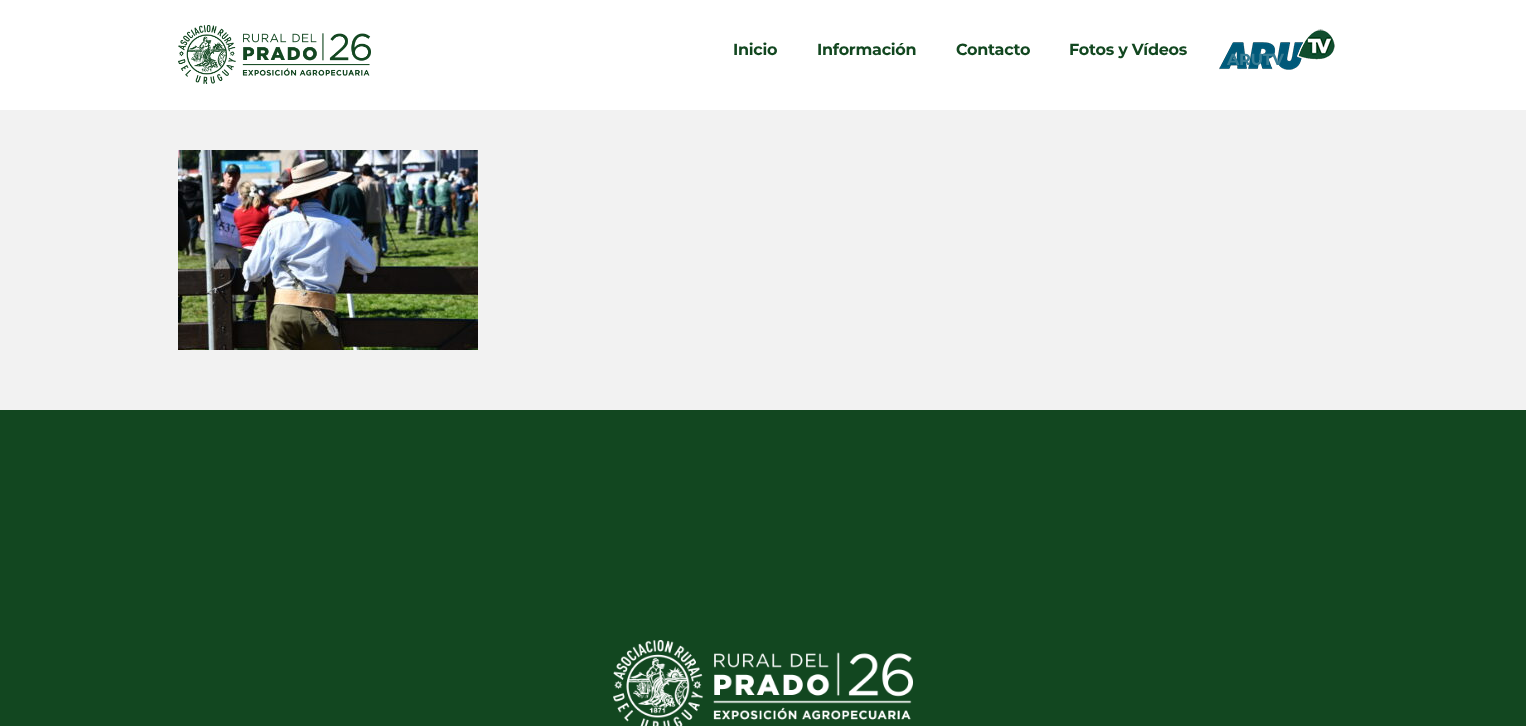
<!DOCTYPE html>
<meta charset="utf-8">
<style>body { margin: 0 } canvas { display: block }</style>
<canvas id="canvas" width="1526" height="726"></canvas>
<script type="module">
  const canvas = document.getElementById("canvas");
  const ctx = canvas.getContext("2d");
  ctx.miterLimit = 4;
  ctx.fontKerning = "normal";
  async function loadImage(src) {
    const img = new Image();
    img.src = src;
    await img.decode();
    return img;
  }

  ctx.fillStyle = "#f2f2f2";
  ctx.fillRect(0, 0, 1526, 726);
  ctx.fillStyle = "#ffffff";
  ctx.fillRect(0, 0, 1526, 110);
  ctx.drawImage(await loadImage("img1.png"), 178, 25, 193, 59);
  ctx.letterSpacing = "-0.25px";
  ctx.font = "bold 16px Montserrat";
  ctx.fillStyle = "#124720";
  ctx.fillText("Inicio", 733, 55);
  ctx.fillText("Información", 817, 55);
  ctx.fillText("Contacto", 956, 55);
  ctx.fillText("Fotos y Vídeos", 1069, 55);
  ctx.drawImage(await loadImage("img2.png"), 1219, 29, 116, 41);
  ctx.fillStyle = "#387d95";
  ctx.fillText("ARUTV", 1227, 65);
  ctx.drawImage(await loadImage("img3.png"), 178, 150, 300, 200);
  ctx.fillStyle = "#124720";
  ctx.fillRect(0, 410, 1526, 316);
  ctx.drawImage(await loadImage("img4.png"), 613, 640, 300, 86);
</script>
